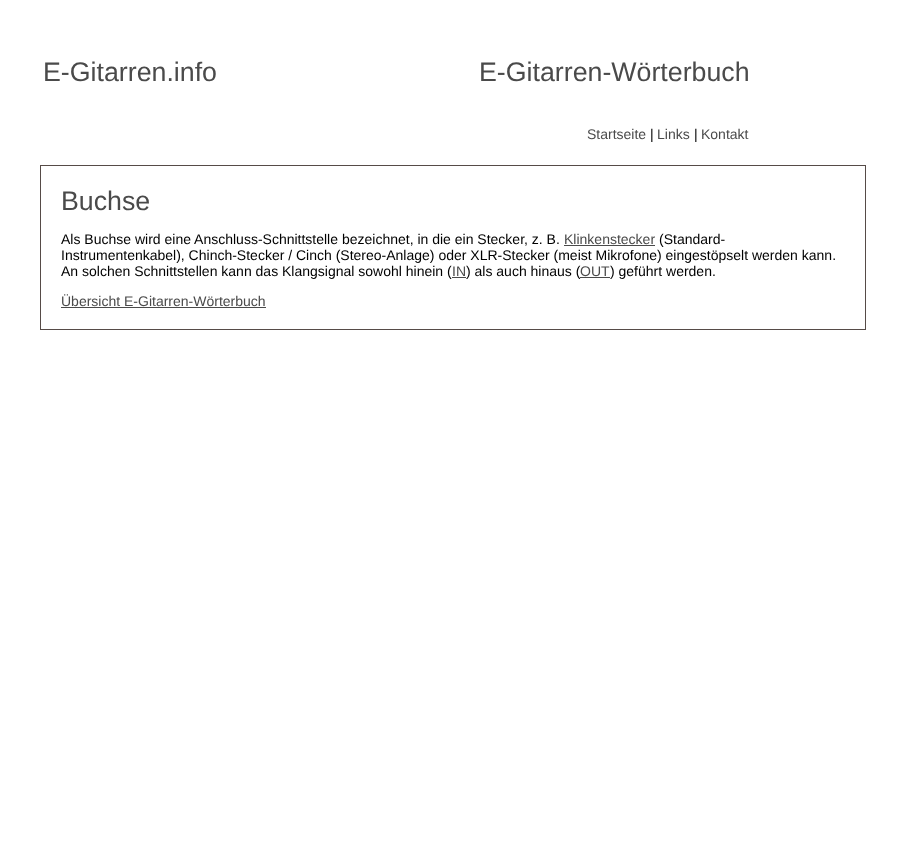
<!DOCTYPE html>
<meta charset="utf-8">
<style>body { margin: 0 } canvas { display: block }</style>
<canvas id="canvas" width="906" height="849"></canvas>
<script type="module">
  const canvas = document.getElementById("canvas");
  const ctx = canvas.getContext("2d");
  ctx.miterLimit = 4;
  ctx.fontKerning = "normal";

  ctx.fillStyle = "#ffffff";
  ctx.fillRect(0, 0, 906, 849);
  ctx.font = "26.75px Liberation Sans";
  ctx.fillStyle = "#4a4a4a";
  ctx.fillText("E-Gitarren.info", 43, 81);
  ctx.fillText("E-Gitarren-Wörterbuch", 479, 81);
  ctx.font = "14px Liberation Sans";
  ctx.fillText("Startseite", 587, 139);
  ctx.fillStyle = "#000000";
  ctx.fillText("|", 650, 139);
  ctx.fillStyle = "#4a4a4a";
  ctx.fillText("Links", 657, 139);
  ctx.fillStyle = "#000000";
  ctx.fillText("|", 694, 139);
  ctx.fillStyle = "#4a4a4a";
  ctx.fillText("Kontakt", 701, 139);
  ctx.strokeStyle = "#564b47";
  ctx.strokeRect(40.5, 165.5, 825, 164);
  ctx.font = "26.75px Liberation Sans";
  ctx.fillText("Buchse", 61, 210);
  ctx.font = "14px Liberation Sans";
  ctx.fillStyle = "#000000";
  ctx.fillText("Als Buchse wird eine Anschluss-Schnittstelle bezeichnet, in die ein Stecker, z. B.", 61, 244);
  ctx.fillStyle = "#4a4a4a";
  ctx.fillText("Klinkenstecker", 564, 244);
  ctx.fillRect(564, 245, 91, 1);
  ctx.fillStyle = "#000000";
  ctx.fillText("(Standard-", 659, 244);
  ctx.fillText("Instrumentenkabel), Chinch-Stecker / Cinch (Stereo-Anlage) oder XLR-Stecker (meist Mikrofone) eingestöpselt werden kann.", 61, 260);
  ctx.fillText("An solchen Schnittstellen kann das Klangsignal sowohl hinein (", 61, 276);
  ctx.fillStyle = "#4a4a4a";
  ctx.fillText("IN", 452, 276);
  ctx.fillRect(452, 277, 14, 1);
  ctx.fillStyle = "#000000";
  ctx.fillText(") als auch hinaus (", 466, 276);
  ctx.fillStyle = "#4a4a4a";
  ctx.fillText("OUT", 580, 276);
  ctx.fillRect(580, 277, 30, 1);
  ctx.fillStyle = "#000000";
  ctx.fillText(") geführt werden.", 610, 276);
  ctx.fillStyle = "#4a4a4a";
  ctx.fillText("Übersicht E-Gitarren-Wörterbuch", 61, 306);
  ctx.fillRect(61, 307, 205, 1);
</script>
